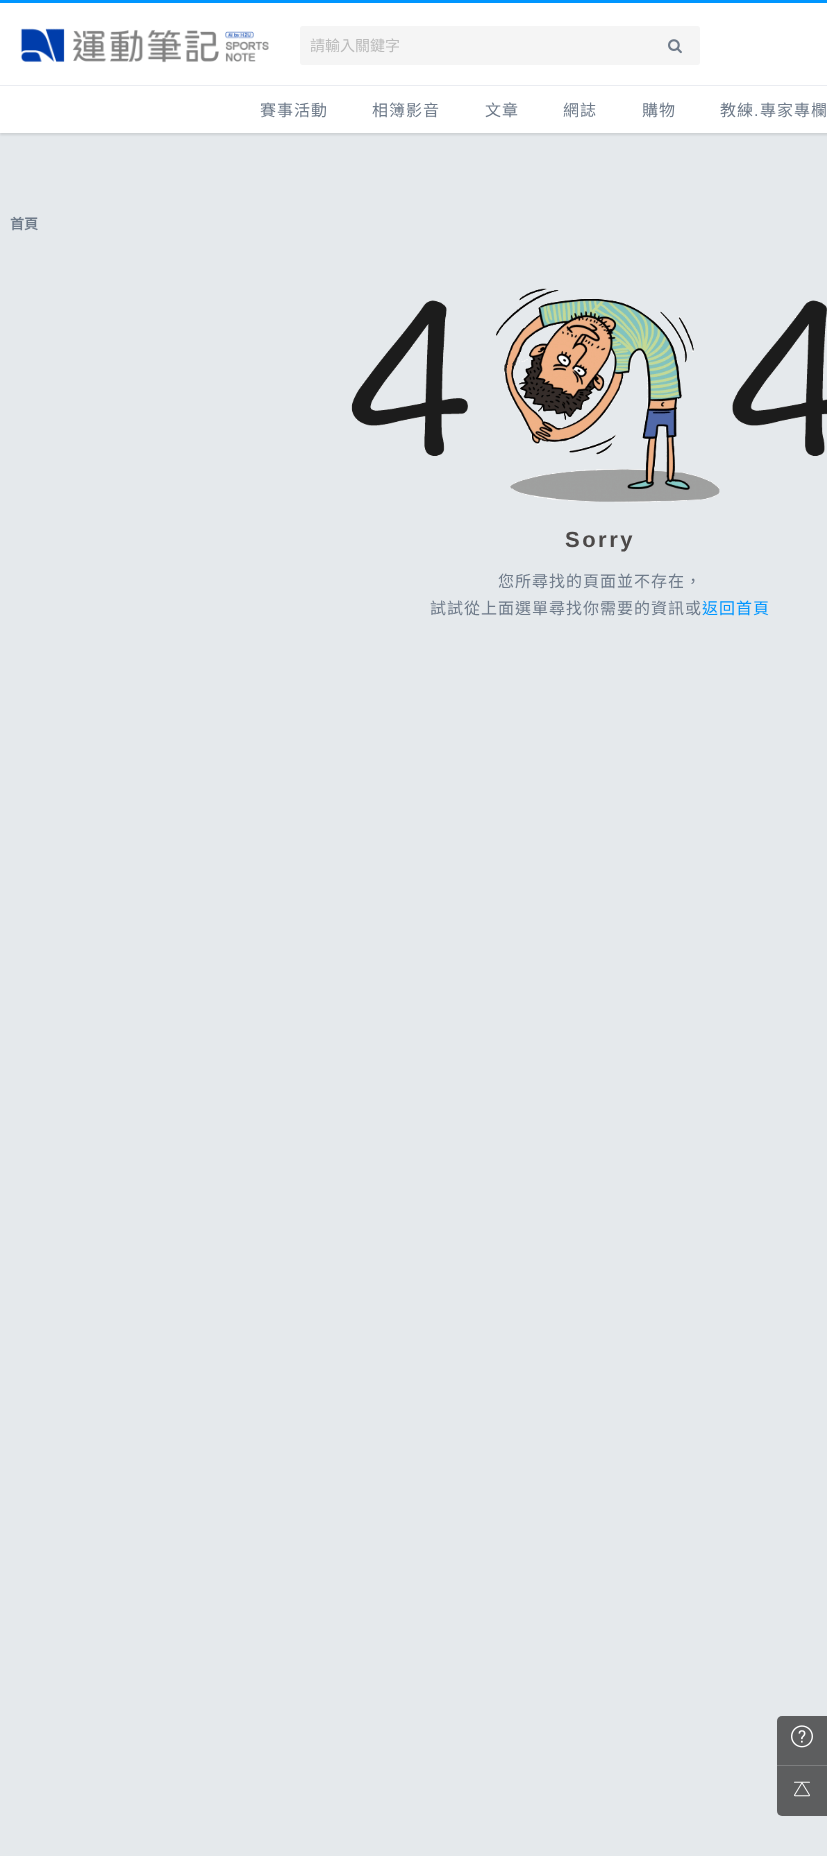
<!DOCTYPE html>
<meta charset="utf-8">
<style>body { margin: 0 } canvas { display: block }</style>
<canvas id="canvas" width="827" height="1856"></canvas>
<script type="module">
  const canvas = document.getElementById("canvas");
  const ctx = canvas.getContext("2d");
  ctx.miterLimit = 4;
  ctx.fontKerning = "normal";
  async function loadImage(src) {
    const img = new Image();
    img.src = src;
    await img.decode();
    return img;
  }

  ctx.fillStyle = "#e5e9ec";
  ctx.fillRect(0, 0, 827, 1856);
  ctx.fillStyle = "#0096ff";
  ctx.fillRect(0, 0, 827, 3);
  ctx.fillStyle = "rgba(0, 0, 0, 0.1)";
  ctx.filter = "blur(1px)";
  ctx.beginPath();
  ctx.rect(0, 5, 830, 130);
  ctx.fill();
  ctx.filter = "none";
  ctx.fillStyle = "#ffffff";
  ctx.fillRect(0, 3, 827, 130);
  ctx.fillStyle = "#eaecf1";
  ctx.fillRect(0, 85, 827, 1);
  ctx.drawImage(await loadImage("img1.png"), 20, 28, 249, 35);
  ctx.fillStyle = "#f5f5f5";
  ctx.beginPath();
  ctx.roundRect(300, 26, 400, 39, 3);
  ctx.fill();
  ctx.font = "15px Noto Sans CJK TC";
  ctx.fillStyle = "#bbbbbb";
  ctx.fillText("請輸入關鍵字", 310, 51);
  ctx.drawImage(await loadImage("img2.png"), 668, 39, 14, 15);
  ctx.letterSpacing = "1px";
  ctx.font = "16px Noto Sans CJK TC";
  ctx.fillStyle = "#6f7b8a";
  ctx.fillText("賽事活動", 260, 116);
  ctx.fillText("相簿影音", 372, 116);
  ctx.fillText("文章", 485, 116);
  ctx.fillText("網誌", 563, 116);
  ctx.fillText("購物", 642, 116);
  ctx.fillText("教練", 720, 116);
  ctx.font = "16px Liberation Sans";
  ctx.fillText(".", 754, 116);
  ctx.font = "16px Noto Sans CJK TC";
  ctx.fillText("專家專欄", 760, 116);
  ctx.letterSpacing = "0px";
  ctx.font = "bold 14px Noto Sans CJK TC";
  ctx.fillText("首頁", 10, 229);
  ctx.drawImage(await loadImage("img3.png"), 351, 288, 476, 215);
  ctx.letterSpacing = "2.5px";
  ctx.font = "bold 22px Liberation Sans";
  ctx.fillStyle = "#4c4948";
  ctx.fillText("Sorry", 565, 547);
  ctx.letterSpacing = "1px";
  ctx.font = "16px Noto Sans CJK TC";
  ctx.fillStyle = "#6f7b8a";
  ctx.fillText("您所尋找的頁面並不存在，", 498, 587);
  ctx.fillText("試試從上面選單尋找你需要的資訊或", 430, 614);
  ctx.fillStyle = "#0096ff";
  ctx.fillText("返回首頁", 702, 614);
  ctx.fillStyle = "#5d5e5f";
  ctx.beginPath();
  ctx.roundRect(777, 1716, 50, 100, [5, 0, 0, 5]);
  ctx.fill();
  ctx.fillStyle = "#7d7e7f";
  ctx.fillRect(777, 1765, 50, 1);
  ctx.drawImage(await loadImage("img4.png"), 791, 1725, 22, 23);
  ctx.drawImage(await loadImage("img5.png"), 794, 1781, 16, 16);
</script>
